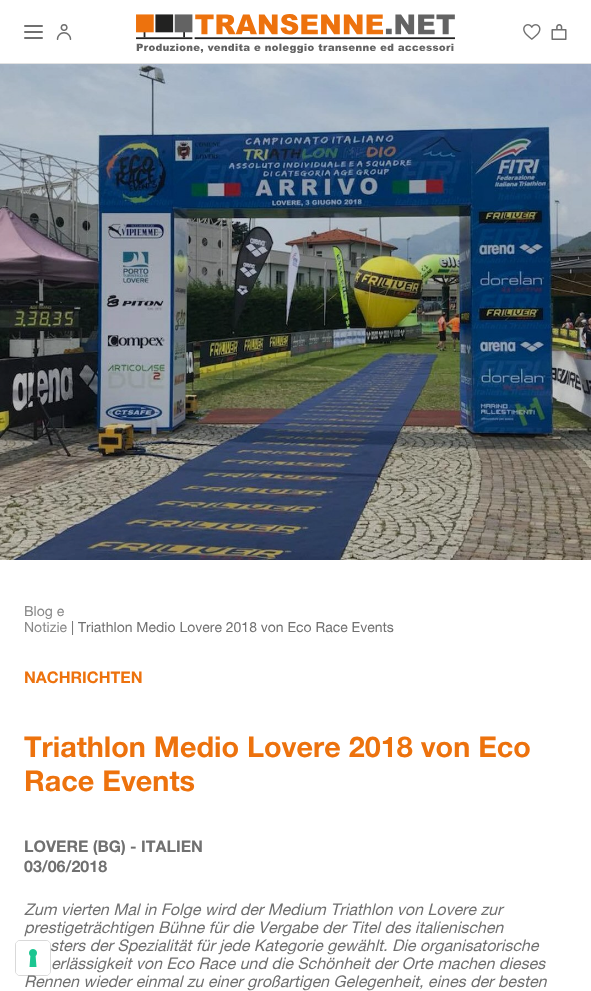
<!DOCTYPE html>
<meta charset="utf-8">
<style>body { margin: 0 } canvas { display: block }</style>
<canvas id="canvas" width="591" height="991"></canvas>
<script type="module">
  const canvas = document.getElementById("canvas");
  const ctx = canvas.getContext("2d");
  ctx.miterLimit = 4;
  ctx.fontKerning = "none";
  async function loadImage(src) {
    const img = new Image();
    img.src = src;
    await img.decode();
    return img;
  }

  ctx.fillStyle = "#ffffff";
  ctx.fillRect(0, 0, 591, 991);
  ctx.fillStyle = "#e2e2e2";
  ctx.fillRect(0, 63, 591, 1);
  ctx.fillStyle = "#707070";
  ctx.beginPath();
  ctx.roundRect(24, 25, 19, 2, 1);
  ctx.fill();
  ctx.beginPath();
  ctx.roundRect(24, 31, 19, 2, 1);
  ctx.fill();
  ctx.beginPath();
  ctx.roundRect(24, 37, 19, 2, 1);
  ctx.fill();
  ctx.font = "16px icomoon";
  ctx.fillText("👤", 56, 39);
  ctx.drawImage(await loadImage("img1.png"), 136, 14, 319, 39);
  ctx.drawImage(await loadImage("img2.png"), 523, 24, 18, 16);
  ctx.fillText("🛒", 551, 39);
  ctx.drawImage(await loadImage("img3.png"), 0, 64, 591, 496);
  ctx.font = "14px Helvetica Neue";
  ctx.fillStyle = "#888888";
  ctx.fillText("Blog e", 24, 616);
  ctx.fillText("Notizie", 24, 632);
  ctx.fillStyle = "#707070";
  ctx.fillText("| Triathlon Medio Lovere 2018 von Eco Race Events", 71, 632);
  ctx.font = "bold 16px Helvetica Neue";
  ctx.fillStyle = "#ed720d";
  ctx.fillText("NACHRICHTEN", 24, 683);
  ctx.font = "bold 28.75px Helvetica Neue";
  ctx.fillText("Triathlon Medio Lovere 2018 von Eco", 24, 757);
  ctx.fillText("Race Events", 24, 791);
  ctx.font = "bold 16px Helvetica Neue";
  ctx.fillStyle = "#707070";
  ctx.fillText("LOVERE (BG) - ITALIEN", 24, 852);
  ctx.fillText("03/06/2018", 24, 872);
  ctx.font = "italic 16px Helvetica Neue";
  ctx.fillText("Zum vierten Mal in Folge wird der Medium Triathlon von Lovere zur", 24, 915);
  ctx.fillText("prestigeträchtigen Bühne für die Vergabe der Titel des italienischen", 24, 933);
  ctx.fillText("sters der Spezialität für jede Kategorie gewählt. Die organisatorische", 50, 951);
  ctx.fillText("erlässigkeit von Eco Race und die Schönheit der Orte machen dieses", 51, 969);
  ctx.fillText("Rennen wieder einmal zu einer großartigen Gelegenheit, eines der besten", 24, 987);
  ctx.beginPath();
  ctx.roundRect(15.5, 940.5, 35, 35, 4.5);
  ctx.strokeStyle = "rgba(0, 0, 0, 0.15)";
  ctx.stroke();
  ctx.fillStyle = "#ffffff";
  ctx.beginPath();
  ctx.roundRect(16, 941, 34, 34, 4);
  ctx.fill();
  ctx.drawImage(await loadImage("img4.png"), 29, 949, 8, 18);
</script>
